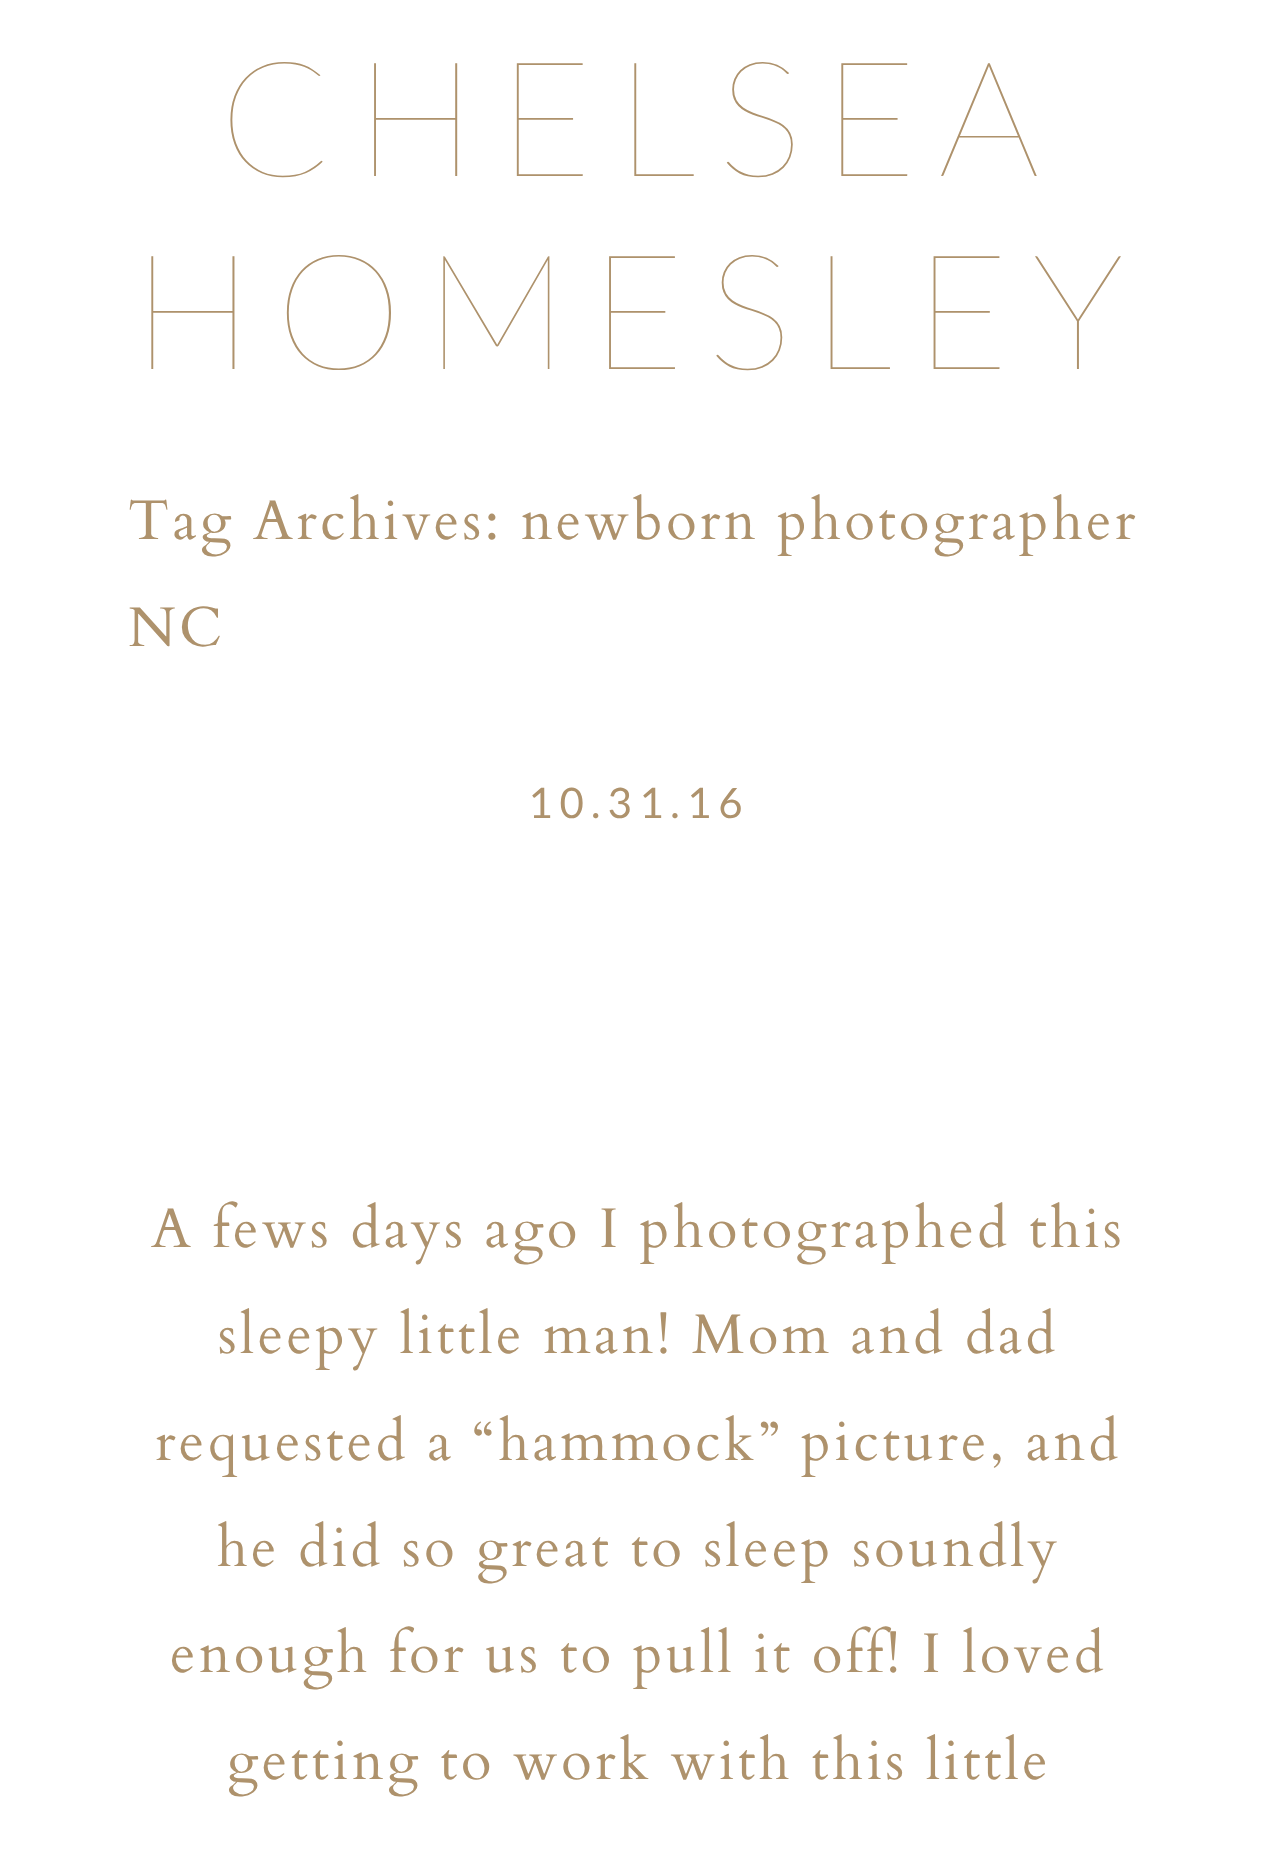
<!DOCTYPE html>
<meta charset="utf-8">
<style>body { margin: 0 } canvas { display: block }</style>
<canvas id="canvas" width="1277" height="1859"></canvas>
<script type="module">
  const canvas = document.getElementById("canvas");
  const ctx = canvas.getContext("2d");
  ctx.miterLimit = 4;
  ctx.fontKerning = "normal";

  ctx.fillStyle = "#ffffff";
  ctx.fillRect(0, 0, 1277, 1859);
  ctx.letterSpacing = "21px";
  ctx.font = "100 161px Lato";
  ctx.fillStyle = "#ae926c";
  ctx.fillText("CHELSEA", 218, 176);
  ctx.fillText("HOMESLEY", 132, 369);
  ctx.letterSpacing = "3.35px";
  ctx.font = "56px Cardo";
  ctx.fillText("Tag Archives: newborn photographer", 128, 539);
  ctx.fillText("NC", 128, 646);
  ctx.letterSpacing = "7.25px";
  ctx.font = "42px Lato";
  ctx.fillText("10.31.16", 528, 818);
  ctx.letterSpacing = "3.35px";
  ctx.font = "56px Cardo";
  ctx.fillText("A fews days ago I photographed this", 151, 1247);
  ctx.fillText("sleepy little man! Mom and dad", 218, 1353);
  ctx.fillText("requested a “hammock” picture, and", 155, 1460);
  ctx.fillText("he did so great to sleep soundly", 217, 1566);
  ctx.fillText("enough for us to pull it off! I loved", 170, 1672);
  ctx.fillText("getting to work with this little", 227, 1779);
</script>
